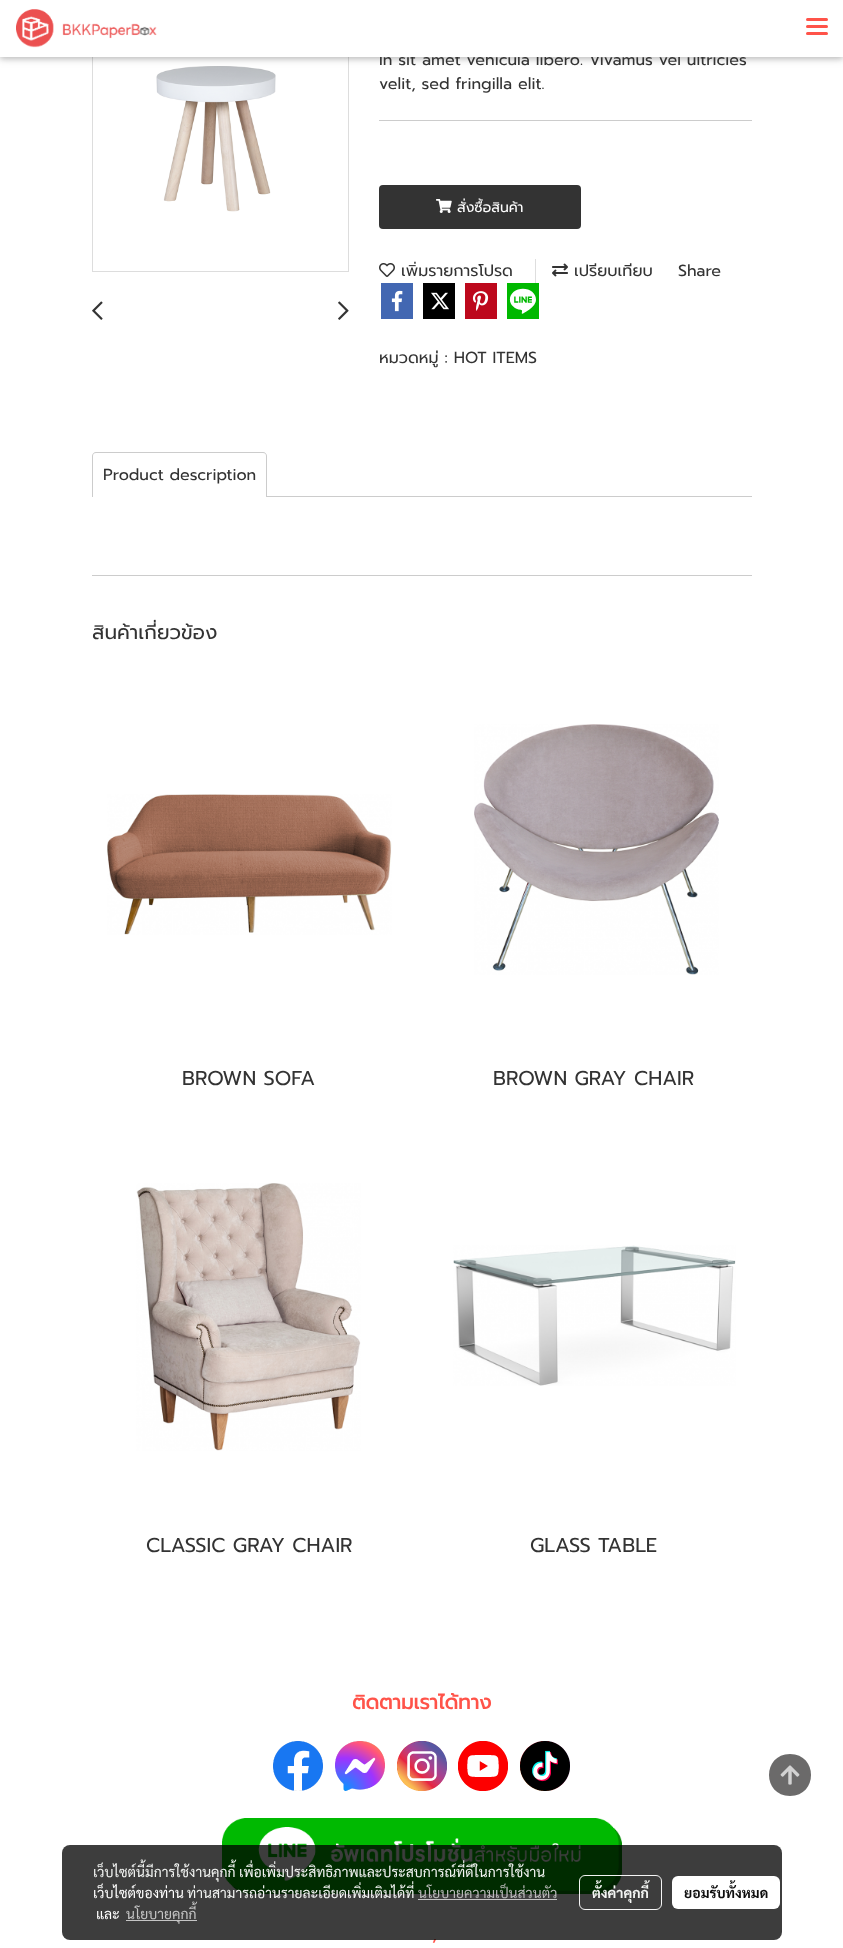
<!DOCTYPE html>
<meta charset="utf-8">
<style>body { margin: 0 } canvas { display: block }</style>
<canvas id="canvas" width="843" height="1948"></canvas>
<script type="module">
  const canvas = document.getElementById("canvas");
  const ctx = canvas.getContext("2d");
  ctx.miterLimit = 4;
  ctx.fontKerning = "normal";
  async function loadImage(src) {
    const img = new Image();
    img.src = src;
    await img.decode();
    return img;
  }

  ctx.fillStyle = "#ffffff";
  ctx.fillRect(0, 0, 843, 1948);
  ctx.strokeStyle = "#dddddd";
  ctx.strokeRect(92.5, 2.5, 256, 269);
  ctx.drawImage(await loadImage("img2.png"), 156, 66, 120, 146);
  ctx.fillStyle = "rgba(0, 0, 0, 0.12)";
  ctx.filter = "blur(5px)";
  ctx.beginPath();
  ctx.rect(0, 2, 843, 57);
  ctx.fill();
  ctx.filter = "none";
  ctx.fillStyle = "rgba(0, 0, 0, 0.16)";
  ctx.filter = "blur(2.5px)";
  ctx.beginPath();
  ctx.rect(0, 2, 843, 57);
  ctx.fill();
  ctx.filter = "none";
  ctx.font = "16px Prompt";
  ctx.fillStyle = "#333333";
  ctx.fillText("In sit amet vehicula libero. Vivamus vel ultricies", 379, 65);
  ctx.fillStyle = "#ffffff";
  ctx.fillRect(0, 0, 843, 57);
  ctx.drawImage(await loadImage("img1.png"), 16, 9, 141, 39);
  ctx.fillStyle = "#ff5349";
  ctx.beginPath();
  ctx.roundRect(806, 25, 22, 3, 1.5);
  ctx.fill();
  ctx.beginPath();
  ctx.roundRect(806, 18, 22, 3, 1.5);
  ctx.fill();
  ctx.beginPath();
  ctx.roundRect(806, 32, 22, 3, 1.5);
  ctx.fill();
  ctx.drawImage(await loadImage("img3.png"), 92, 301, 11, 19);
  ctx.drawImage(await loadImage("img4.png"), 338, 301, 11, 19);
  ctx.fillStyle = "#333333";
  ctx.fillText("velit, sed fringilla elit.", 379, 89);
  ctx.fillStyle = "#cccccc";
  ctx.fillRect(379, 120, 373, 1);
  ctx.fillStyle = "#333333";
  ctx.beginPath();
  ctx.roundRect(379, 185, 202, 44, 4);
  ctx.fill();
  ctx.drawImage(await loadImage("img5.png"), 436, 199, 16, 14);
  ctx.font = "14px Prompt";
  ctx.fillStyle = "#ffffff";
  ctx.fillText("สั่งซื้อสินค้า", 457, 212);
  ctx.drawImage(await loadImage("img6.png"), 379, 263, 16, 14);
  ctx.font = "16px Prompt";
  ctx.fillStyle = "#333333";
  ctx.fillText("เพิ่มรายการโปรด", 401, 276);
  ctx.fillStyle = "#dedede";
  ctx.fillRect(535, 259, 1, 24);
  ctx.drawImage(await loadImage("img7.png"), 552, 263, 16, 14);
  ctx.fillStyle = "#333333";
  ctx.fillText("เปรียบเทียบ", 574, 276);
  ctx.fillText("Share", 678, 276);
  ctx.fillStyle = "#4267b2";
  ctx.fillRect(381, 283, 32, 36);
  ctx.drawImage(await loadImage("img8.png"), 391, 290, 12, 22);
  ctx.fillStyle = "#000000";
  ctx.fillRect(423, 283, 32, 36);
  ctx.drawImage(await loadImage("img9.png"), 431, 292, 18, 18);
  ctx.fillStyle = "#bd081c";
  ctx.fillRect(465, 283, 32, 36);
  ctx.drawImage(await loadImage("img10.png"), 472, 291, 17, 20);
  ctx.fillStyle = "#00b800";
  ctx.fillRect(507, 283, 32, 36);
  ctx.drawImage(await loadImage("img11.png"), 509, 288, 27, 26);
  ctx.fillStyle = "#333333";
  ctx.fillText("หมวดหมู่ : HOT ITEMS", 379, 363);
  ctx.fillStyle = "#cccccc";
  ctx.beginPath();
  ctx.moveTo(96, 452);
  ctx.lineTo(263, 452);
  ctx.bezierCurveTo(265, 452, 267, 454, 267, 456);
  ctx.lineTo(267, 497);
  ctx.lineTo(92, 497);
  ctx.lineTo(92, 456);
  ctx.bezierCurveTo(92, 454, 94, 452, 96, 452);
  ctx.closePath();
  ctx.moveTo(96, 453);
  ctx.lineTo(263, 453);
  ctx.bezierCurveTo(265, 453, 266, 454, 266, 456);
  ctx.lineTo(266, 497);
  ctx.lineTo(93, 497);
  ctx.lineTo(93, 456);
  ctx.bezierCurveTo(93, 454, 94, 453, 96, 453);
  ctx.closePath();
  ctx.fill("evenodd");
  ctx.fillStyle = "#333333";
  ctx.fillText("Product description", 103, 480);
  ctx.fillStyle = "#cccccc";
  ctx.fillRect(267, 496, 485, 1);
  ctx.fillRect(92, 575, 660, 1);
  ctx.font = "20px Prompt";
  ctx.fillStyle = "#333333";
  ctx.fillText("สินค้าเกี่ยวข้อง", 92, 639);
  ctx.drawImage(await loadImage("img12.png"), 107, 794, 285, 141);
  ctx.fillText("BROWN SOFA", 182, 1085);
  ctx.drawImage(await loadImage("img13.png"), 474, 724, 245, 251);
  ctx.fillText("BROWN GRAY CHAIR", 493, 1085);
  ctx.drawImage(await loadImage("img14.png"), 136, 1183, 225, 268);
  ctx.fillText("CLASSIC GRAY CHAIR", 146, 1552);
  ctx.drawImage(await loadImage("img15.png"), 453, 1245, 283, 141);
  ctx.fillText("GLASS TABLE", 530, 1552);
  ctx.font = "bold 20px Prompt";
  ctx.fillStyle = "#ff5349";
  ctx.fillText("ติดตามเราได้ทาง", 352, 1709);
  ctx.drawImage(await loadImage("img16.png"), 273, 1741, 50, 50);
  ctx.drawImage(await loadImage("img17.png"), 335, 1741, 50, 50);
  ctx.drawImage(await loadImage("img18.png"), 397, 1741, 50, 50);
  ctx.drawImage(await loadImage("img19.png"), 458, 1741, 50, 50);
  ctx.drawImage(await loadImage("img20.png"), 520, 1741, 50, 50);
  ctx.drawImage(await loadImage("img21.png"), 222, 1818, 400, 76);
  ctx.font = "18px Prompt";
  ctx.fillText(",", 432, 1940);
  ctx.fillStyle = "#6b6a6a";
  ctx.beginPath();
  ctx.moveTo(790, 1754);
  ctx.bezierCurveTo(762, 1754, 762, 1796, 790, 1796);
  ctx.bezierCurveTo(818, 1796, 818, 1754, 790, 1754);
  ctx.closePath();
  ctx.fill();
  ctx.drawImage(await loadImage("img22.png"), 780, 1765, 20, 20);
  ctx.fillStyle = "rgba(0, 0, 0, 0.76)";
  ctx.beginPath();
  ctx.roundRect(62, 1845, 720, 95, 8);
  ctx.fill();
  ctx.font = "14px Sarabun";
  ctx.fillStyle = "#f3f5f3";
  ctx.fillText("เว็บไซต์นี้มีการใช้งานคุกกี้ เพื่อเพิ่มประสิทธิภาพและประสบการณ์ที่ดีในการใช้งาน", 93, 1877);
  ctx.fillStyle = "#ffffff";
  ctx.fillText("เว็บไซต์ของท่าน", 93, 1898);
  ctx.fillStyle = "#f3f5f3";
  ctx.fillText("ท่านสามารถอ่านรายละเอียดเพิ่มเติมได้ที่", 187, 1898);
  ctx.fillStyle = "#babbba";
  ctx.fillText("นโยบายความเป็นส่วนตัว", 418, 1898);
  ctx.fillStyle = "#c5c5c5";
  ctx.fillRect(418, 1899, 139, 1);
  ctx.fillStyle = "#ffffff";
  ctx.fillText("และ", 96, 1919);
  ctx.fillStyle = "#c5c5c5";
  ctx.fillRect(126, 1920, 71, 1);
  ctx.fillText("นโยบายคุกกี้", 126, 1919);
  ctx.beginPath();
  ctx.roundRect(579.5, 1875.5, 82, 34, 5.5);
  ctx.strokeStyle = "rgba(255, 255, 255, 0.95)";
  ctx.stroke();
  ctx.font = "bold 14px Sarabun";
  ctx.fillStyle = "#f3f5f3";
  ctx.fillText("ตั้งค่าคุกกี้", 592, 1898);
  ctx.fillStyle = "#ffffff";
  ctx.beginPath();
  ctx.roundRect(672, 1876, 108, 33, 6);
  ctx.fill();
  ctx.fillStyle = "#0d0d0d";
  ctx.fillText("ยอมรับทั้งหมด", 684, 1898);
</script>
